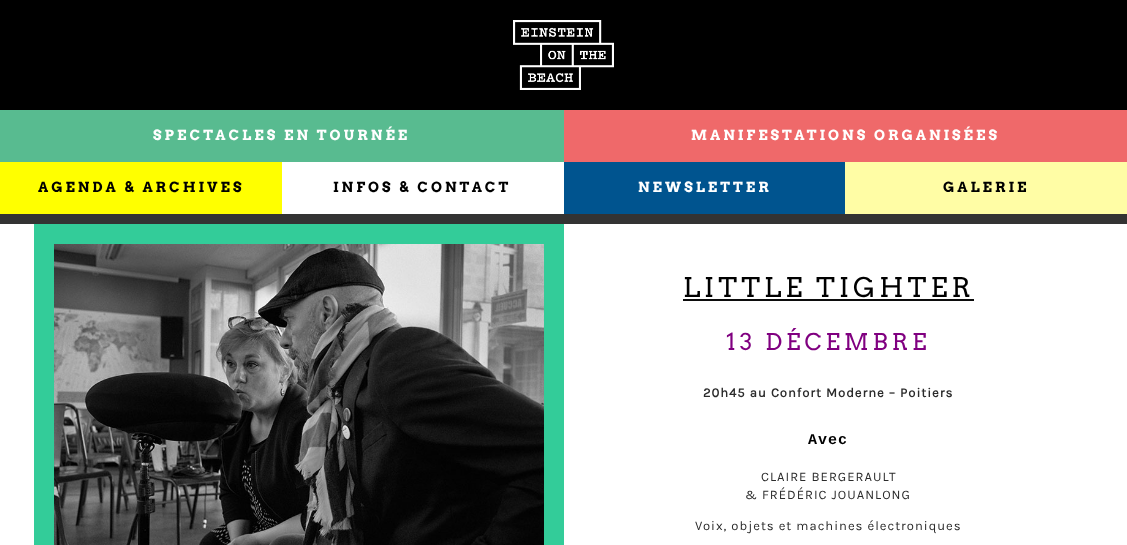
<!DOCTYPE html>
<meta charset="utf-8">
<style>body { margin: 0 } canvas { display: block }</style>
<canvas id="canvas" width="1127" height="545"></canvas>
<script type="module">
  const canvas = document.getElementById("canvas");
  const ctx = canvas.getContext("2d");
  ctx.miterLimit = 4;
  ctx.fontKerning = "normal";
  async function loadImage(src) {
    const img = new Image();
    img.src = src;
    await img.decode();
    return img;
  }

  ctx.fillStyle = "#ffffff";
  ctx.fillRect(0, 0, 1127, 545);
  ctx.fillStyle = "#000000";
  ctx.fillRect(0, 0, 1127, 110);
  ctx.drawImage(await loadImage("img1.png"), 513, 20, 101, 70);
  ctx.fillStyle = "#58bb90";
  ctx.fillRect(0, 110, 564, 52);
  ctx.letterSpacing = "3px";
  ctx.font = "bold 14px Arvo";
  ctx.fillStyle = "#ffffff";
  ctx.fillText("SPECTACLES EN TOURNÉE", 153, 140);
  ctx.fillStyle = "#ef696a";
  ctx.fillRect(564, 110, 563, 52);
  ctx.fillStyle = "#ffffff";
  ctx.fillText("MANIFESTATIONS ORGANISÉES", 691, 140);
  ctx.fillStyle = "#333333";
  ctx.fillRect(0, 214, 1127, 10);
  ctx.fillStyle = "#ffff00";
  ctx.fillRect(0, 162, 282, 52);
  ctx.fillStyle = "#000000";
  ctx.fillText("AGENDA & ARCHIVES", 38, 192);
  ctx.fillText("INFOS & CONTACT", 333, 192);
  ctx.fillStyle = "#00548f";
  ctx.fillRect(564, 162, 281, 52);
  ctx.fillStyle = "#ffffff";
  ctx.fillText("NEWSLETTER", 638, 192);
  ctx.fillStyle = "#fffda5";
  ctx.fillRect(845, 162, 282, 52);
  ctx.fillStyle = "#000000";
  ctx.fillText("GALERIE", 943, 192);
  ctx.fillStyle = "#33cc99";
  ctx.fillRect(34, 224, 530, 321);
  ctx.drawImage(await loadImage("img2.png"), 54, 244, 490, 301);
  ctx.letterSpacing = "4px";
  ctx.font = "27px Arvo";
  ctx.fillStyle = "#000000";
  ctx.fillText("LITTLE TIGHTER", 683, 297);
  ctx.fillStyle = "#0c0c0c";
  ctx.fillRect(683, 299, 291, 2);
  ctx.font = "23px Arvo";
  ctx.fillStyle = "#800080";
  ctx.fillText("13 DÉCEMBRE", 726, 350);
  ctx.letterSpacing = "1px";
  ctx.font = "bold 13px Karla";
  ctx.fillStyle = "#2b2b2b";
  ctx.fillText("20h45 au Confort Moderne – Poitiers", 703, 397);
  ctx.font = "bold 15px Liberation Mono";
  ctx.fillStyle = "#000000";
  ctx.fillText("Avec", 808, 444);
  ctx.font = "13px Karla";
  ctx.fillStyle = "#2b2b2b";
  ctx.fillText("CLAIRE BERGERAULT", 761, 481);
  ctx.fillText("& FRÉDÉRIC JOUANLONG", 745, 499);
  ctx.fillText("Voix, objets et machines électroniques", 695, 530);
</script>
